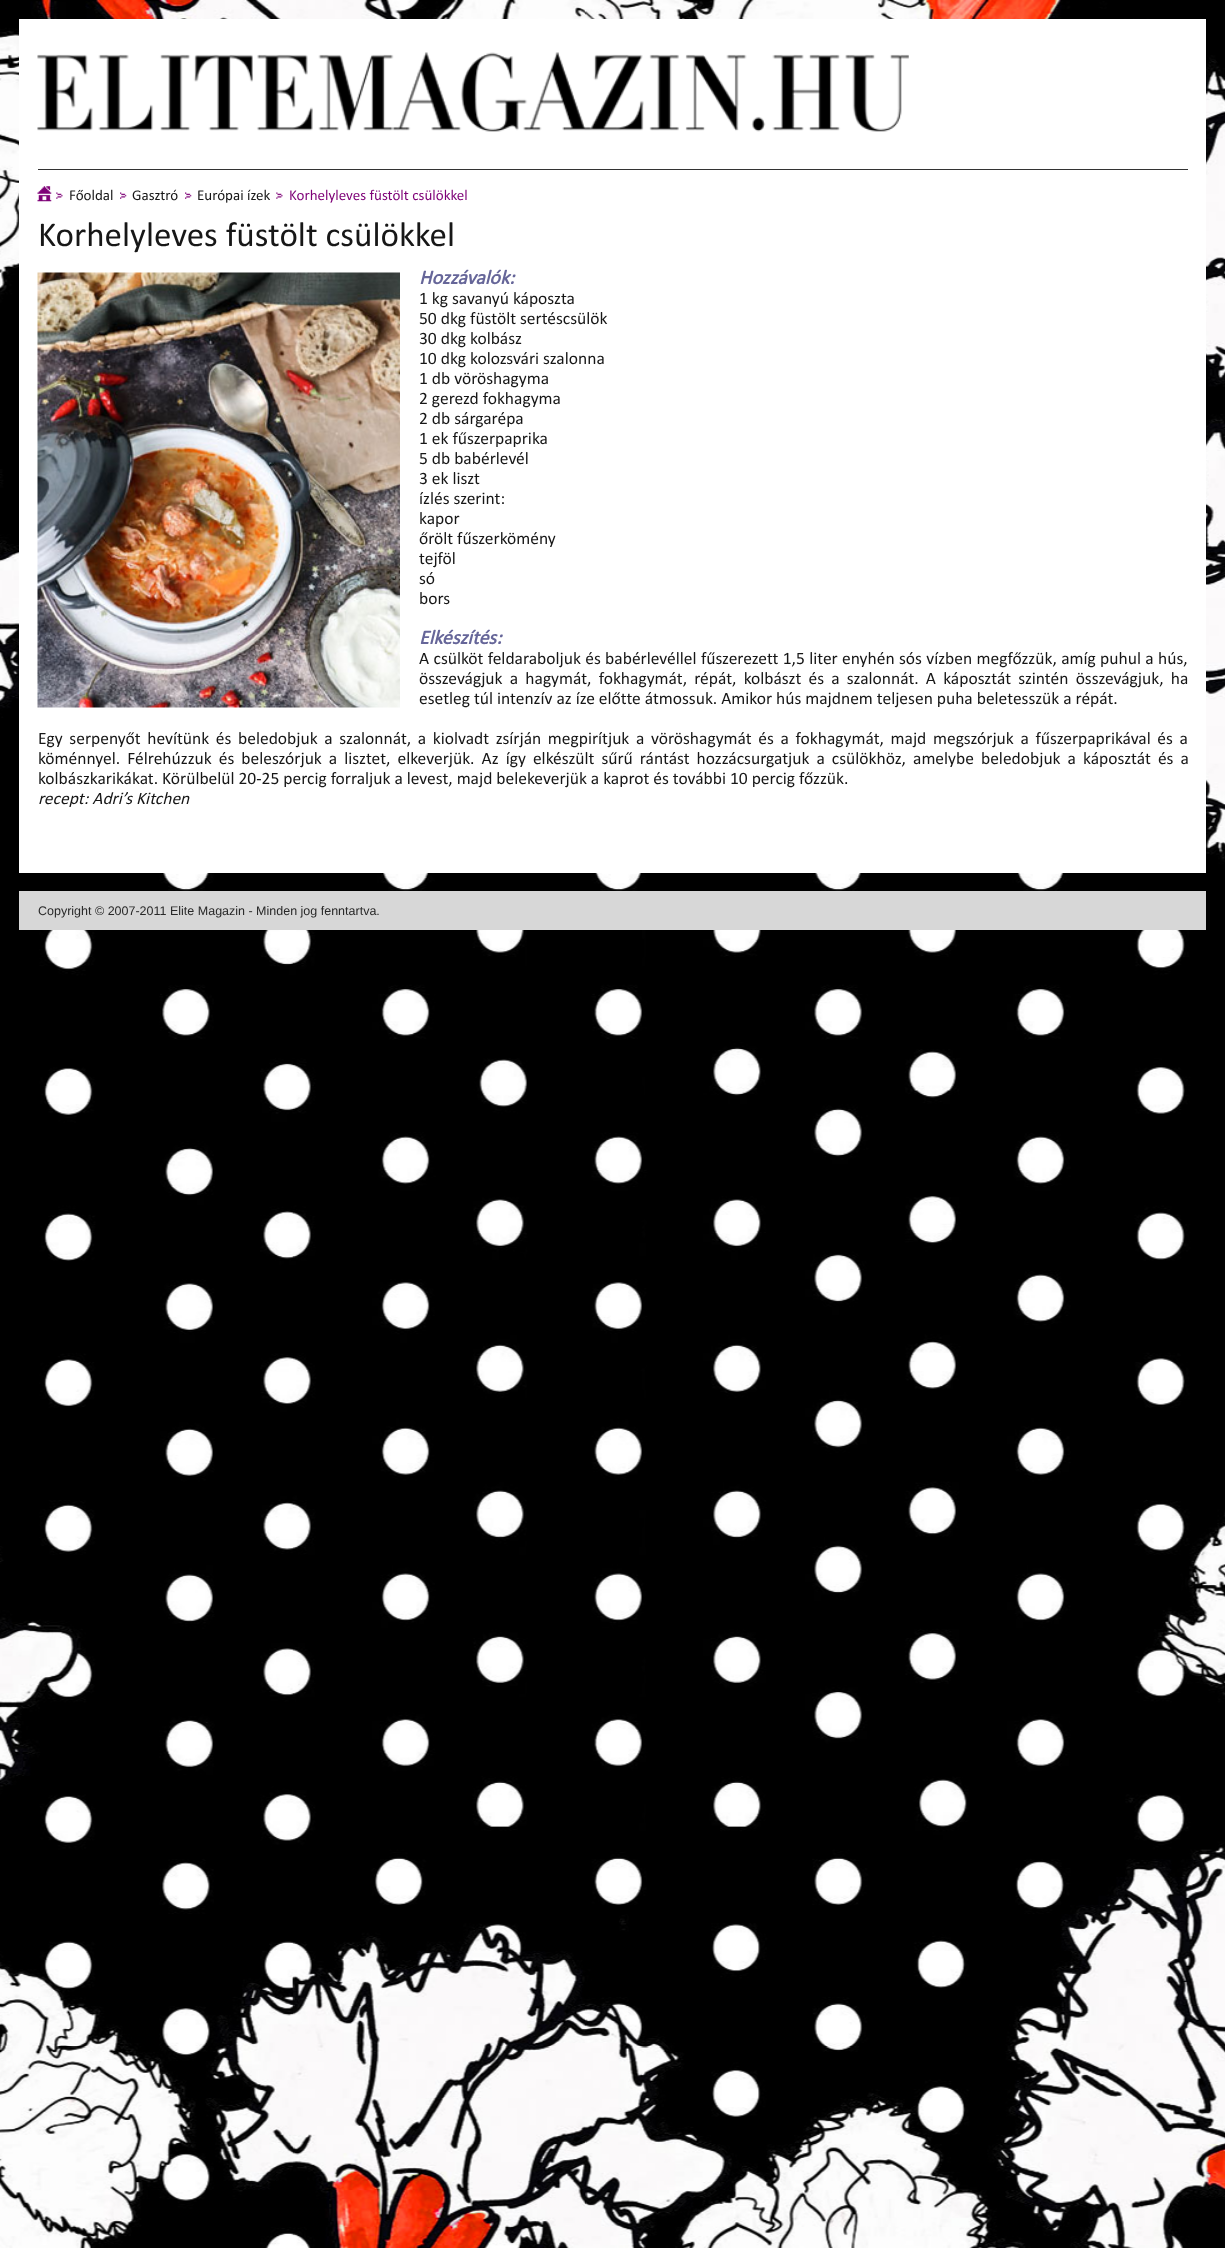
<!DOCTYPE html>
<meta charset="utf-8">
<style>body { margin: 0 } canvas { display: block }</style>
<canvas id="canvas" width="1225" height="2248"></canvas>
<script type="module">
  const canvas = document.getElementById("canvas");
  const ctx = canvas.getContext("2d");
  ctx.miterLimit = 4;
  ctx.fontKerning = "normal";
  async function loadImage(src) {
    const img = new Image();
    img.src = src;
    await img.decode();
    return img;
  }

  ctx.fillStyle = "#ffffff";
  ctx.fillRect(0, 0, 1225, 2248);
  ctx.drawImage(await loadImage("img1.png"), 0, 0, 1225, 2248);
  ctx.fillRect(19, 19, 1187, 854);
  ctx.fillStyle = "#333333";
  ctx.fillRect(38, 169, 1150, 1);
  ctx.drawImage(await loadImage("img2.png"), 37, 52, 872, 80);
  ctx.drawImage(await loadImage("img3.png"), 37, 186, 15, 16);
  ctx.drawImage(await loadImage("img4.png"), 56, 192, 7, 7);
  ctx.font = "15px Calibri";
  ctx.fillStyle = "#171717";
  ctx.fillText("Főoldal", 69, 200);
  ctx.drawImage(await loadImage("img5.png"), 120, 192, 7, 7);
  ctx.fillText("Gasztró", 132, 200);
  ctx.drawImage(await loadImage("img5.png"), 185, 192, 7, 7);
  ctx.fillText("Európai ízek", 197, 200);
  ctx.drawImage(await loadImage("img4.png"), 276, 192, 7, 7);
  ctx.fillStyle = "#7e0177";
  ctx.fillText("Korhelyleves füstölt csülökkel", 289, 200);
  ctx.font = "35px Calibri";
  ctx.fillStyle = "#171717";
  ctx.fillText("Korhelyleves füstölt csülökkel", 38, 246);
  ctx.drawImage(await loadImage("img6.png"), 37, 272, 363, 436);
  ctx.font = "italic bold 20px Calibri";
  ctx.fillStyle = "#666699";
  ctx.fillText("Hozzávalók:", 419, 284);
  ctx.font = "17.5px Calibri";
  ctx.fillStyle = "#171717";
  ctx.fillText("1 kg savanyú káposzta", 419, 304);
  ctx.fillText("50 dkg füstölt sertéscsülök", 419, 324);
  ctx.fillText("30 dkg kolbász", 419, 344);
  ctx.fillText("10 dkg kolozsvári szalonna", 419, 364);
  ctx.fillText("1 db vöröshagyma", 419, 384);
  ctx.fillText("2 gerezd fokhagyma", 419, 404);
  ctx.fillText("2 db sárgarépa", 419, 424);
  ctx.fillText("1 ek fűszerpaprika", 419, 444);
  ctx.fillText("5 db babérlevél", 419, 464);
  ctx.fillText("3 ek liszt", 419, 484);
  ctx.fillText("ízlés szerint:", 419, 504);
  ctx.fillText("kapor", 419, 524);
  ctx.fillText("őrölt fűszerkömény", 419, 544);
  ctx.fillText("tejföl", 419, 564);
  ctx.fillText("só", 419, 584);
  ctx.fillText("bors", 419, 604);
  ctx.font = "italic bold 20px Calibri";
  ctx.fillStyle = "#666699";
  ctx.fillText("Elkészítés:", 419, 644);
  ctx.wordSpacing = "0.4px";
  ctx.font = "17.5px Calibri";
  ctx.fillStyle = "#171717";
  ctx.fillText("A csülköt feldaraboljuk és babérlevéllel fűszerezett 1,5 liter enyhén sós vízben megfőzzük, amíg puhul a hús,", 419, 664);
  ctx.wordSpacing = "3.25px";
  ctx.fillText("összevágjuk a hagymát, fokhagymát, répát, kolbászt és a szalonnát. A káposztát szintén összevágjuk, ha", 419, 684);
  ctx.wordSpacing = "0px";
  ctx.fillText("esetleg túl intenzív az íze előtte átmossuk. Amikor hús majdnem teljesen puha beletesszük a répát.", 419, 704);
  ctx.wordSpacing = "2.7px";
  ctx.fillText("Egy serpenyőt hevítünk és beledobjuk a szalonnát, a kiolvadt zsírján megpirítjuk a vöröshagymát és a fokhagymát, majd megszórjuk a fűszerpaprikával és a", 38, 744);
  ctx.wordSpacing = "3.1px";
  ctx.fillText("köménnyel. Félrehúzzuk és beleszórjuk a lisztet, elkeverjük. Az így elkészült sűrű rántást hozzácsurgatjuk a csülökhöz, amelybe beledobjuk a káposztát és a", 38, 764);
  ctx.wordSpacing = "0px";
  ctx.fillText("kolbászkarikákat. Körülbelül 20-25 percig forraljuk a levest, majd belekeverjük a kaprot és további 10 percig főzzük.", 38, 784);
  ctx.font = "italic 17.5px Calibri";
  ctx.fillText("recept: Adri’s Kitchen", 38, 804);
  ctx.fillStyle = "#d7d7d7";
  ctx.fillRect(19, 891, 1187, 39);
  ctx.font = "12.5px Liberation Sans";
  ctx.fillStyle = "#282828";
  ctx.fillText("Copyright © 2007-2011 Elite Magazin - Minden jog fenntartva.", 38, 915);
</script>
